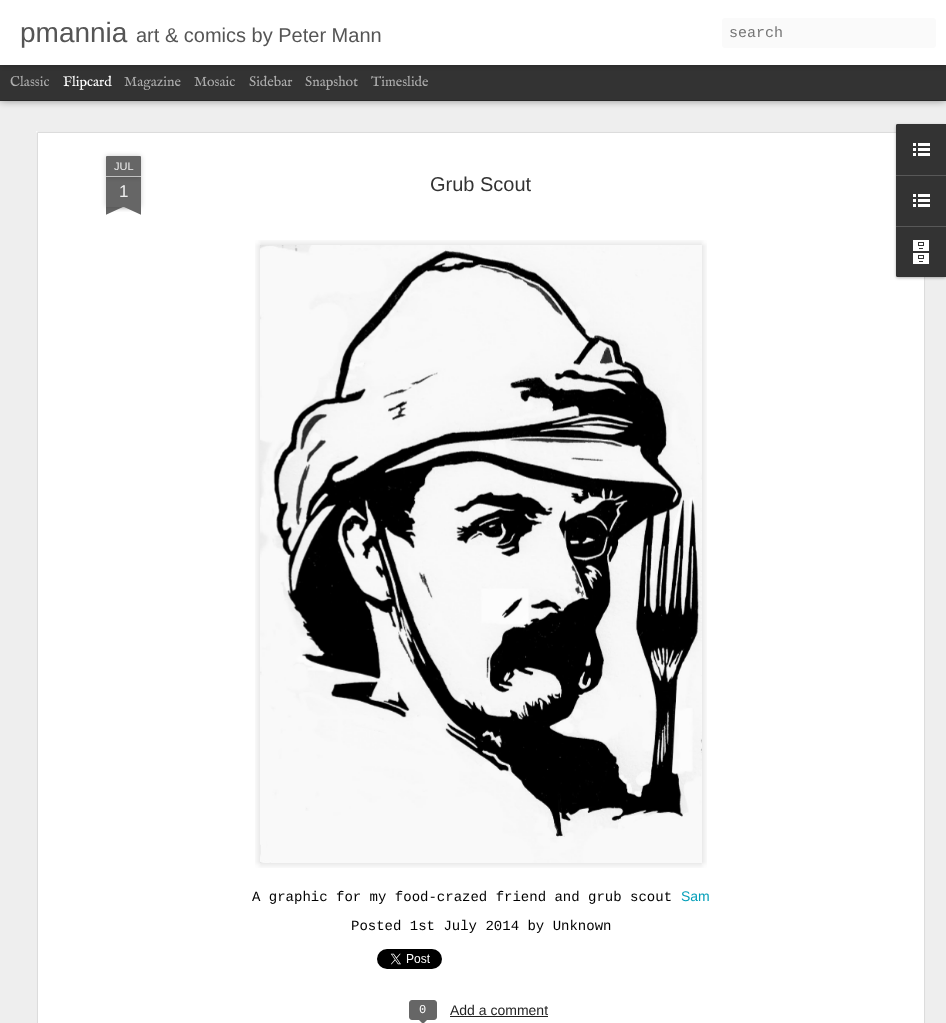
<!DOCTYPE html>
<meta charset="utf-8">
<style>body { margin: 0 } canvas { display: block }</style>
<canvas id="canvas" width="946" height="1023"></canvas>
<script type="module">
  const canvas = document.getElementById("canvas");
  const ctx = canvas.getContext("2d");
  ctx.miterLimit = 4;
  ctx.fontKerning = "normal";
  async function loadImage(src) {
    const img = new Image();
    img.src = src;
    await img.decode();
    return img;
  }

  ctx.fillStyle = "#333333";
  ctx.fillRect(0, 0, 946, 1023);
  ctx.fillStyle = "#eeeeee";
  ctx.fillRect(0, 101, 946, 922);
  ctx.fillStyle = "rgba(0, 0, 0, 0.5)";
  ctx.filter = "blur(4px)";
  ctx.beginPath();
  ctx.rect(0, 65, 946, 35);
  ctx.fill();
  ctx.filter = "none";
  ctx.fillStyle = "#333333";
  ctx.fillRect(0, 65, 946, 35);
  ctx.fillStyle = "rgba(0, 0, 0, 0.3)";
  ctx.filter = "blur(2.5px)";
  ctx.beginPath();
  ctx.rect(0, 0, 946, 65);
  ctx.fill();
  ctx.filter = "none";
  ctx.fillStyle = "#ffffff";
  ctx.fillRect(0, 0, 946, 65);
  ctx.font = "28px Liberation Sans";
  ctx.fillStyle = "#555555";
  ctx.fillText("pmannia", 20, 42);
  ctx.font = "20px Liberation Sans";
  ctx.fillText("art & comics by Peter Mann", 136, 42);
  ctx.fillStyle = "#fafafa";
  ctx.beginPath();
  ctx.roundRect(722, 18, 214, 30, 3);
  ctx.fill();
  ctx.font = "15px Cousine";
  ctx.fillStyle = "#757575";
  ctx.fillText("search", 729, 37);
  ctx.font = "14px IM FELL English";
  ctx.fillStyle = "#adadad";
  ctx.fillText("Classic", 10, 86);
  ctx.fillStyle = "#ffffff";
  ctx.fillText("Flipcard", 63, 86);
  ctx.fillStyle = "#adadad";
  ctx.fillText("Magazine", 124, 86);
  ctx.fillText("Mosaic", 194, 86);
  ctx.fillText("Sidebar", 249, 86);
  ctx.fillText("Snapshot", 305, 86);
  ctx.fillText("Timeslide", 371, 86);
  ctx.fillStyle = "#ffffff";
  ctx.fillRect(36, 131, 890, 892);
  ctx.drawImage(await loadImage("img1.png"), 36, 131, 890, 892);
  ctx.fillStyle = "rgba(0, 0, 0, 0.2)";
  ctx.filter = "blur(2.5px)";
  ctx.beginPath();
  ctx.rect(106, 177, 35, 30);
  ctx.fill();
  ctx.filter = "none";
  ctx.fillStyle = "#666666";
  ctx.fillRect(106, 177, 35, 30);
  ctx.fillStyle = "rgba(0, 0, 0, 0.2)";
  ctx.filter = "blur(2.5px)";
  ctx.beginPath();
  ctx.roundRect(106, 156, 35, 21, 1);
  ctx.fill();
  ctx.filter = "none";
  ctx.fillStyle = "#666666";
  ctx.beginPath();
  ctx.roundRect(106, 156, 35, 21, [1, 1, 0, 0]);
  ctx.fill();
  ctx.fillStyle = "#c2c2c2";
  ctx.fillRect(106, 176, 35, 1);
  ctx.font = "11px Liberation Sans";
  ctx.fillStyle = "#eeeeee";
  ctx.fillText("JUL", 114, 170);
  ctx.font = "17px Liberation Sans";
  ctx.fillText("1", 119, 197);
  ctx.save();
  ctx.beginPath();
  ctx.rect(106, 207, 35, 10);
  ctx.clip();
  ctx.fillStyle = "rgba(0, 0, 0, 0.2)";
  ctx.filter = "blur(2.5px)";
  ctx.beginPath();
  ctx.rect(97, 197, 50, 10);
  ctx.fill();
  ctx.filter = "none";
  ctx.restore();
  ctx.save();
  ctx.beginPath();
  ctx.rect(106, 207, 35, 10);
  ctx.clip();
  ctx.fillStyle = "#666666";
  ctx.beginPath();
  ctx.moveTo(97, 208);
  ctx.lineTo(143, 187);
  ctx.lineTo(147, 196);
  ctx.lineTo(101, 217);
  ctx.closePath();
  ctx.fill();
  ctx.restore();
  ctx.save();
  ctx.beginPath();
  ctx.rect(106, 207, 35, 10);
  ctx.clip();
  ctx.fillStyle = "rgba(0, 0, 0, 0.2)";
  ctx.filter = "blur(2.5px)";
  ctx.beginPath();
  ctx.rect(100, 197, 50, 10);
  ctx.fill();
  ctx.filter = "none";
  ctx.restore();
  ctx.save();
  ctx.beginPath();
  ctx.rect(106, 207, 35, 10);
  ctx.clip();
  ctx.fillStyle = "#666666";
  ctx.beginPath();
  ctx.moveTo(104, 187);
  ctx.lineTo(150, 208);
  ctx.lineTo(146, 217);
  ctx.lineTo(100, 196);
  ctx.closePath();
  ctx.fill();
  ctx.restore();
  ctx.font = "20px Liberation Sans";
  ctx.fillStyle = "#333333";
  ctx.fillText("Grub Scout", 430, 191);
  ctx.drawImage(await loadImage("img2.png"), 255, 240, 452, 628);
  ctx.drawImage(await loadImage("img3.png"), 260, 248, 442, 588);
  ctx.font = "14px Cousine";
  ctx.fillStyle = "#000000";
  ctx.fillText("A graphic for my food-crazed friend and grub scout", 252, 901);
  ctx.font = "14px Liberation Sans";
  ctx.fillStyle = "#009eb8";
  ctx.fillText("Sam", 681, 901);
  ctx.font = "14px Cousine";
  ctx.fillStyle = "#000000";
  ctx.fillText("Posted 1st July 2014 by Unknown", 351, 930);
  ctx.drawImage(await loadImage("img4.png"), 377, 949, 65, 20);
  ctx.fillStyle = "#666666";
  ctx.beginPath();
  ctx.roundRect(409.5, 1000.5, 27, 19, 2.5);
  ctx.fill();
  ctx.strokeStyle = "#666666";
  ctx.stroke();
  ctx.font = "12px Cousine";
  ctx.fillStyle = "#ffffff";
  ctx.fillText("0", 419, 1013);
  ctx.fillStyle = "#666666";
  ctx.beginPath();
  ctx.moveTo(418, 1019);
  ctx.lineTo(428, 1019);
  ctx.lineTo(423, 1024);
  ctx.closePath();
  ctx.fill();
  ctx.font = "14px Liberation Sans";
  ctx.fillStyle = "#222222";
  ctx.fillText("Add a comment", 450, 1015);
  ctx.fillRect(450, 1016, 98, 1);
  ctx.fillStyle = "rgba(0, 0, 0, 0.3)";
  ctx.filter = "blur(1.5px)";
  ctx.beginPath();
  ctx.roundRect(896, 125, 50, 153, 2);
  ctx.fill();
  ctx.filter = "none";
  ctx.fillStyle = "#333333";
  ctx.beginPath();
  ctx.roundRect(896, 124, 50, 153, [2, 0, 0, 2]);
  ctx.fill();
  ctx.beginPath();
  ctx.roundRect(896, 124, 50, 51, [2, 0, 0, 0]);
  ctx.fill();
  ctx.drawImage(await loadImage("img5.png"), 913, 143, 17, 13);
  ctx.fillStyle = "#585858";
  ctx.fillRect(896, 175, 50, 1);
  ctx.drawImage(await loadImage("img5.png"), 913, 194, 17, 13);
  ctx.fillStyle = "#333333";
  ctx.beginPath();
  ctx.roundRect(896, 226, 50, 51, [0, 0, 0, 2]);
  ctx.fill();
  ctx.fillStyle = "#585858";
  ctx.fillRect(896, 226, 50, 1);
  ctx.drawImage(await loadImage("img6.png"), 913, 240, 16, 24);
</script>
